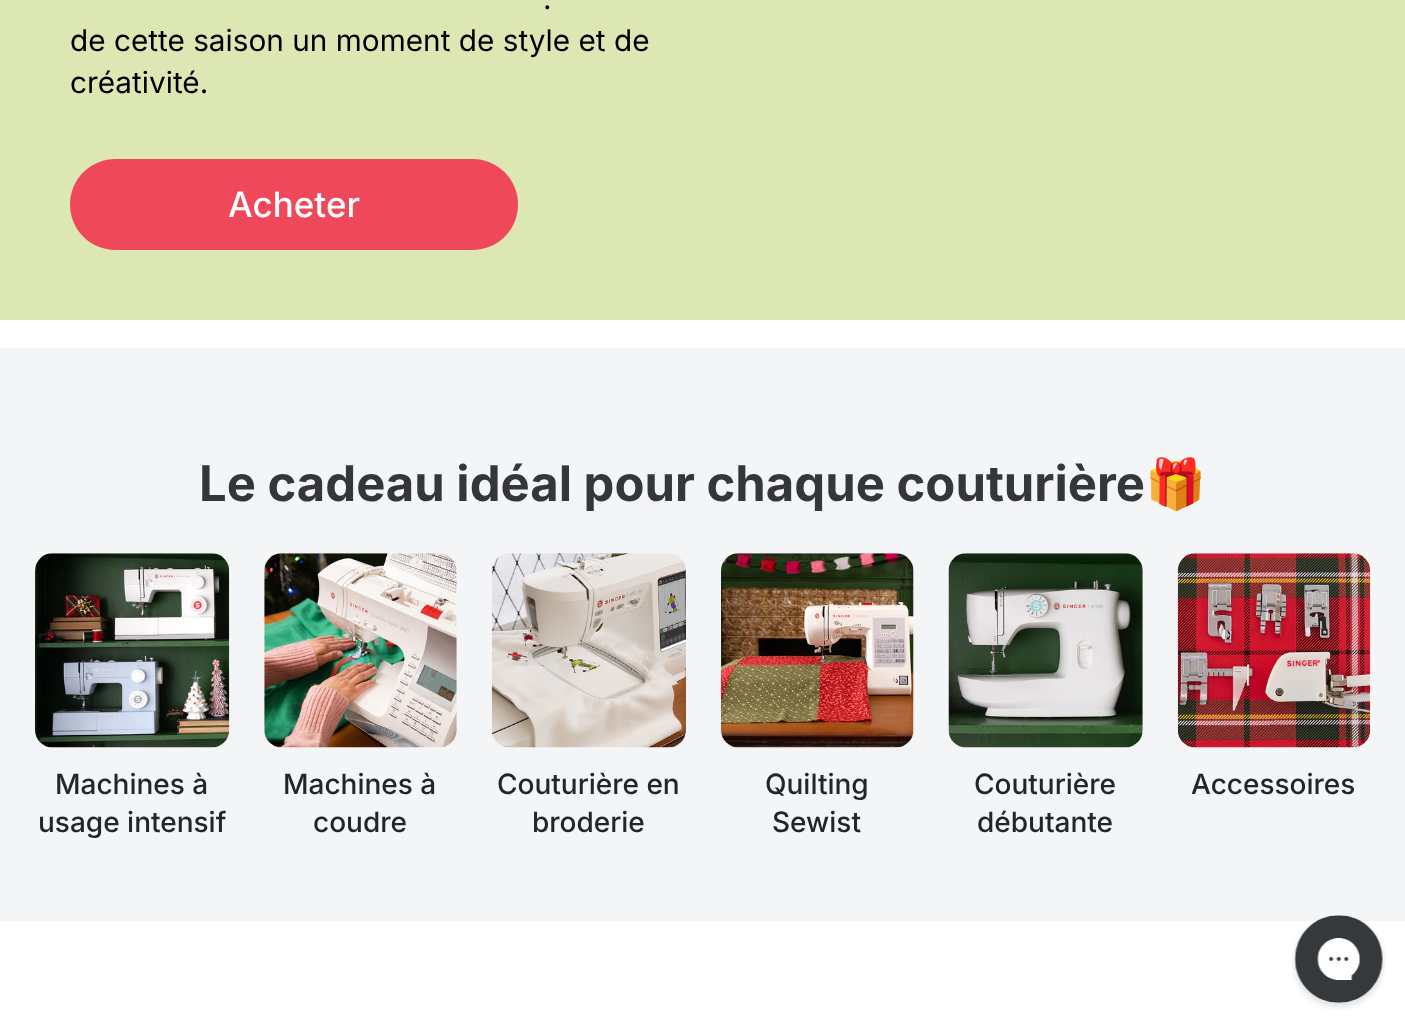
<!DOCTYPE html>
<meta charset="utf-8">
<style>body { margin: 0 } canvas { display: block }</style>
<canvas id="canvas" width="1405" height="1024"></canvas>
<script type="module">
  const canvas = document.getElementById("canvas");
  const ctx = canvas.getContext("2d");
  ctx.miterLimit = 4;
  ctx.fontKerning = "normal";
  async function loadImage(src) {
    const img = new Image();
    img.src = src;
    await img.decode();
    return img;
  }

  ctx.fillStyle = "#ffffff";
  ctx.fillRect(0, 0, 1405, 1024);
  ctx.fillStyle = "#dde7b3";
  ctx.fillRect(0, 0, 1405, 320);
  ctx.font = "29.75px Inter";
  ctx.fillStyle = "#000000";
  ctx.fillText(".", 543, 9);
  ctx.fillText("de cette saison un moment de style et de", 70, 51);
  ctx.fillText("créativité.", 70, 93);
  ctx.fillStyle = "#ee485a";
  ctx.beginPath();
  ctx.roundRect(70, 159, 448, 91, 45.5);
  ctx.fill();
  ctx.font = "500 35px Inter";
  ctx.fillStyle = "#ffffff";
  ctx.fillText("Acheter", 228, 217);
  ctx.fillStyle = "#f4f5f7";
  ctx.fillRect(0, 348, 1405, 573);
  ctx.font = "bold 49px Inter";
  ctx.fillStyle = "#343638";
  ctx.fillText("Le cadeau idéal pour chaque couturière", 199, 501);
  ctx.font = "bold 49px Noto Color Emoji";
  ctx.fillText("🎁", 1145, 501);
  ctx.drawImage(await loadImage("img1.png"), 35, 553, 195, 195);
  ctx.font = "500 28px Inter";
  ctx.fillStyle = "#232627";
  ctx.fillText("Machines à", 55, 794);
  ctx.fillText("usage intensif", 38, 832);
  ctx.drawImage(await loadImage("img2.png"), 264, 553, 193, 195);
  ctx.fillText("Machines à", 283, 794);
  ctx.fillText("coudre", 313, 832);
  ctx.drawImage(await loadImage("img3.png"), 491, 553, 195, 195);
  ctx.fillText("Couturière en", 497, 794);
  ctx.fillText("broderie", 532, 832);
  ctx.drawImage(await loadImage("img4.png"), 721, 553, 193, 195);
  ctx.fillText("Quilting", 765, 794);
  ctx.fillText("Sewist", 772, 832);
  ctx.drawImage(await loadImage("img5.png"), 948, 553, 195, 195);
  ctx.fillText("Couturière", 974, 794);
  ctx.fillText("débutante", 977, 832);
  ctx.drawImage(await loadImage("img6.png"), 1177, 553, 194, 195);
  ctx.fillText("Accessoires", 1191, 794);
  ctx.drawImage(await loadImage("img7.png"), 1292, 915, 94, 95);
</script>
